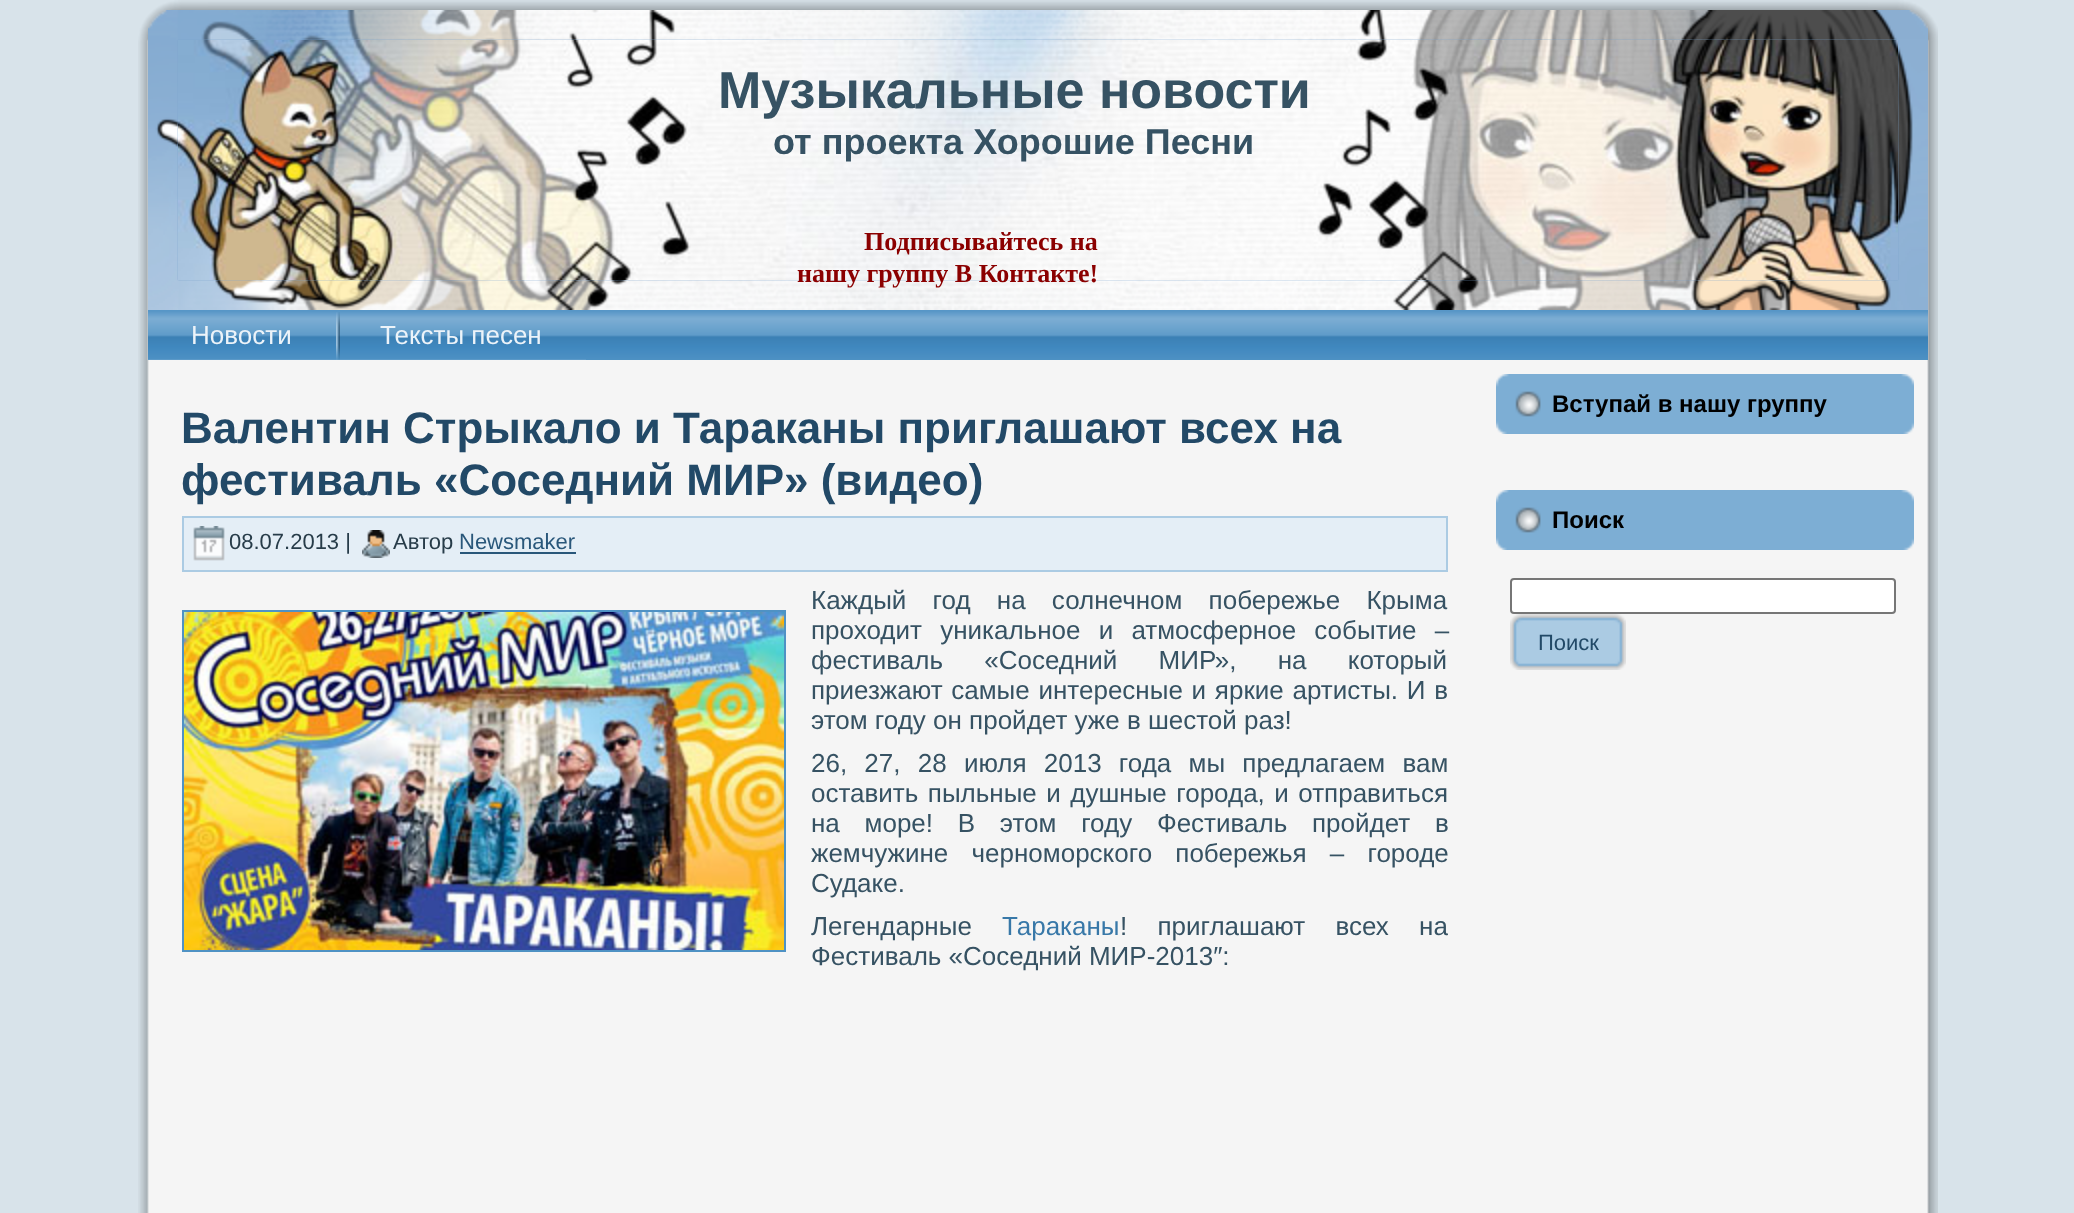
<!DOCTYPE html>
<meta charset="utf-8">
<style>body { margin: 0 } canvas { display: block }</style>
<canvas id="canvas" width="2074" height="1213"></canvas>
<script type="module">
  const canvas = document.getElementById("canvas");
  const ctx = canvas.getContext("2d");
  ctx.miterLimit = 4;
  ctx.fontKerning = "normal";
  async function loadImage(src) {
    const img = new Image();
    img.src = src;
    await img.decode();
    return img;
  }

  ctx.fillStyle = "#d8e3ea";
  ctx.fillRect(0, 0, 2074, 1213);
  ctx.drawImage(await loadImage("img1.png"), 138, 0, 70, 70);
  ctx.drawImage(await loadImage("img2.png"), 208, 0, 1660, 10);
  ctx.drawImage(await loadImage("img3.png"), 1868, 0, 70, 70);
  ctx.drawImage(await loadImage("img4.png"), 138, 70, 70, 1143);
  ctx.drawImage(await loadImage("img16.png"), 1868, 70, 70, 1143);
  ctx.fillStyle = "#f5f5f5";
  ctx.fillRect(208, 305, 1660, 908);
  ctx.drawImage(await loadImage("img5.png"), 148, 10, 1780, 300);
  ctx.drawImage(await loadImage("img6.png"), 178, 40, 1720, 240);
  ctx.font = "bold 52px Liberation Sans";
  ctx.fillStyle = "#365263";
  ctx.fillText("Музыкальные новости", 718, 108);
  ctx.font = "bold 36px Liberation Sans";
  ctx.fillText("от проекта Хорошие Песни", 773, 154);
  ctx.font = "bold 26px Liberation Serif";
  ctx.fillStyle = "#8b0000";
  ctx.fillText("Подписывайтесь на", 864, 250);
  ctx.fillText("нашу группу В Контакте!", 797, 282);
  ctx.drawImage(await loadImage("img7.png"), 148, 310, 1780, 50);
  ctx.font = "26px Liberation Sans";
  ctx.fillStyle = "#ecf3f9";
  ctx.fillText("Новости", 191, 344);
  ctx.fillStyle = "#5b99c8";
  ctx.fillRect(148, 359, 188, 1);
  ctx.drawImage(await loadImage("img8.png"), 336, 312, 4, 48);
  ctx.fillStyle = "#ecf3f9";
  ctx.fillText("Тексты песен", 380, 344);
  ctx.fillStyle = "rgba(134, 178, 215, 0.25)";
  ctx.fillRect(336, 359, 250, 1);
  ctx.font = "bold 44px Liberation Sans";
  ctx.fillStyle = "#224967";
  ctx.fillText("Валентин Стрыкало и Тараканы приглашают всех на", 181, 443);
  ctx.fillText("фестиваль «Соседний МИР» (видео)", 181, 495);
  ctx.fillStyle = "#e4eef6";
  ctx.beginPath();
  ctx.rect(183, 517, 1264, 54);
  ctx.fill();
  ctx.strokeStyle = "#abcbe3";
  ctx.lineWidth = 2;
  ctx.stroke();
  ctx.drawImage(await loadImage("img9.png"), 193, 526, 32, 35);
  ctx.font = "22px Liberation Sans";
  ctx.fillStyle = "#273c49";
  ctx.fillText("08.07.2013 |", 229, 549);
  ctx.drawImage(await loadImage("img10.png"), 362, 530, 28, 28);
  ctx.fillText("Автор", 393, 549);
  ctx.fillStyle = "#29577a";
  ctx.fillText("Newsmaker", 459, 549);
  ctx.fillRect(460, 552, 116, 2);
  ctx.wordSpacing = "19px";
  ctx.font = "26px Liberation Sans";
  ctx.fillStyle = "#365263";
  ctx.fillText("Каждый год на солнечном побережье Крыма", 811, 609);
  ctx.strokeStyle = "#4f92c4";
  ctx.strokeRect(183, 611, 602, 340);
  ctx.drawImage(await loadImage("img11.png"), 184, 612, 600, 338);
  ctx.wordSpacing = "11px";
  ctx.fillText("проходит уникальное и атмосферное событие –", 811, 639);
  ctx.wordSpacing = "34px";
  ctx.fillText("фестиваль «Соседний МИР», на который", 811, 669);
  ctx.wordSpacing = "1.5px";
  ctx.fillText("приезжают самые интересные и яркие артисты. И в", 811, 699);
  ctx.wordSpacing = "0px";
  ctx.fillText("этом году он пройдет уже в шестой раз!", 811, 729);
  ctx.wordSpacing = "10px";
  ctx.fillText("26, 27, 28 июля 2013 года мы предлагаем вам", 811, 772);
  ctx.wordSpacing = "2.25px";
  ctx.fillText("оставить пыльные и душные города, и отправиться", 811, 802);
  ctx.wordSpacing = "17.5px";
  ctx.fillText("на море! В этом году Фестиваль пройдет в", 811, 832);
  ctx.wordSpacing = "16px";
  ctx.fillText("жемчужине черноморского побережья – городе", 811, 862);
  ctx.wordSpacing = "0px";
  ctx.fillText("Судаке.", 811, 892);
  ctx.fillText("Легендарные", 811, 935);
  ctx.fillStyle = "#3878a8";
  ctx.fillText("Тараканы", 1002, 935);
  ctx.wordSpacing = "23px";
  ctx.fillStyle = "#365263";
  ctx.fillText("! приглашают всех на", 1120, 935);
  ctx.wordSpacing = "0px";
  ctx.fillText("Фестиваль «Соседний МИР-2013″:", 811, 965);
  ctx.drawImage(await loadImage("img12.png"), 1496, 374, 374, 60);
  ctx.drawImage(await loadImage("img13.png"), 1870, 374, 44, 60);
  ctx.font = "bold 24px Liberation Sans";
  ctx.fillStyle = "#000000";
  ctx.fillText("Вступай в нашу группу", 1552, 412);
  ctx.drawImage(await loadImage("img12.png"), 1496, 490, 374, 60);
  ctx.drawImage(await loadImage("img13.png"), 1870, 490, 44, 60);
  ctx.fillText("Поиск", 1552, 528);
  ctx.fillStyle = "#ffffff";
  ctx.beginPath();
  ctx.roundRect(1511, 579, 384, 34, 3);
  ctx.fill();
  ctx.strokeStyle = "#767676";
  ctx.stroke();
  ctx.drawImage(await loadImage("img14.png"), 1510, 614, 100, 56);
  ctx.drawImage(await loadImage("img15.png"), 1610, 614, 16, 56);
  ctx.font = "22px Liberation Sans";
  ctx.fillStyle = "#224967";
  ctx.fillText("Поиск", 1538, 650);
</script>
